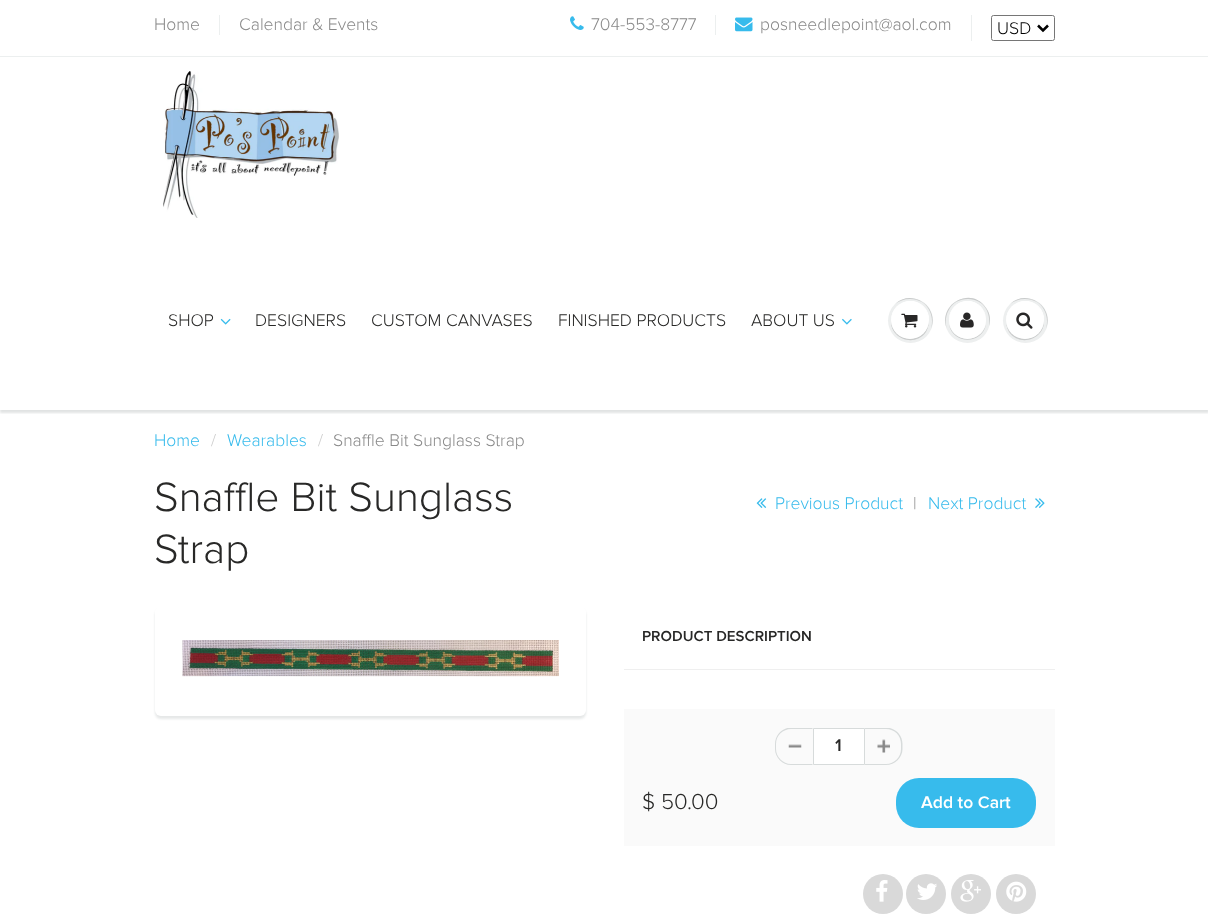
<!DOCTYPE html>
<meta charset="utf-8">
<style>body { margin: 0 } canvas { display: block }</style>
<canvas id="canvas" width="1208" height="914"></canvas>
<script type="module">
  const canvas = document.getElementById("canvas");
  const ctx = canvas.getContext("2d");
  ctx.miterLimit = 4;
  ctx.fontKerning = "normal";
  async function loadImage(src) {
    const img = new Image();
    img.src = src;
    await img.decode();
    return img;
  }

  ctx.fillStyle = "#ffffff";
  ctx.fillRect(0, 0, 1208, 914);
  ctx.font = "300 17.5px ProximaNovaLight";
  ctx.fillStyle = "#898989";
  ctx.fillText("Home", 154, 30);
  ctx.fillStyle = "#ecefef";
  ctx.fillRect(219, 15, 1, 20);
  ctx.fillStyle = "#898989";
  ctx.fillText("Calendar & Events", 239, 30);
  ctx.drawImage(await loadImage("img1.png"), 570, 16, 14, 14);
  ctx.fillText("704-553-8777", 591, 30);
  ctx.fillStyle = "#ecefef";
  ctx.fillRect(715, 15, 1, 20);
  ctx.drawImage(await loadImage("img2.png"), 735, 17, 18, 15);
  ctx.fillStyle = "#898989";
  ctx.fillText("posneedlepoint@aol.com", 760, 30);
  ctx.fillStyle = "#ecefef";
  ctx.fillRect(971, 15, 1, 26);
  ctx.beginPath();
  ctx.roundRect(991.5, 15.5, 63, 25, 2);
  ctx.strokeStyle = "#767676";
  ctx.stroke();
  ctx.beginPath();
  ctx.moveTo(1038, 25.5);
  ctx.lineTo(1043, 30.5);
  ctx.lineTo(1048, 25.5);
  ctx.strokeStyle = "#000000";
  ctx.lineWidth = 2.5;
  ctx.stroke();
  ctx.fillStyle = "#000000";
  ctx.fillText("USD", 997, 34);
  ctx.fillStyle = "#edefef";
  ctx.beginPath();
  ctx.arc(910.5, 320.5, 22.5, 0, Math.PI * 2);
  ctx.fill();
  ctx.fillStyle = "#c9cbcb";
  ctx.beginPath();
  ctx.moveTo(910, 299);
  ctx.bezierCurveTo(928, 299, 935, 316, 931, 329);
  ctx.bezierCurveTo(940, 307, 912, 288, 895, 304);
  ctx.bezierCurveTo(899, 301, 904, 299, 910, 299);
  ctx.closePath();
  ctx.fill();
  ctx.fillStyle = "#edefef";
  ctx.beginPath();
  ctx.arc(967.5, 320.5, 22.5, 0, Math.PI * 2);
  ctx.fill();
  ctx.fillStyle = "#c9cbcb";
  ctx.beginPath();
  ctx.moveTo(968, 299);
  ctx.bezierCurveTo(984, 299, 991, 313, 989, 326);
  ctx.bezierCurveTo(991, 320, 990, 313, 986, 308);
  ctx.bezierCurveTo(971, 285, 937, 305, 947, 329);
  ctx.bezierCurveTo(943, 316, 950, 299, 968, 299);
  ctx.closePath();
  ctx.fill();
  ctx.fillStyle = "#edefef";
  ctx.beginPath();
  ctx.arc(1025.5, 320.5, 22.5, 0, Math.PI * 2);
  ctx.fill();
  ctx.fillStyle = "#c9cbcb";
  ctx.beginPath();
  ctx.moveTo(1025, 299);
  ctx.bezierCurveTo(1043, 299, 1050, 316, 1046, 329);
  ctx.bezierCurveTo(1055, 307, 1027, 288, 1010, 304);
  ctx.bezierCurveTo(1014, 301, 1019, 299, 1025, 299);
  ctx.closePath();
  ctx.fill();
  ctx.save();
  ctx.beginPath();
  ctx.rect(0, 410, 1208, 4);
  ctx.clip();
  ctx.fillStyle = "rgba(11, 25, 28, 0.12)";
  ctx.filter = "blur(1px)";
  ctx.beginPath();
  ctx.rect(0, 59, 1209, 354);
  ctx.fill();
  ctx.filter = "none";
  ctx.restore();
  ctx.fillStyle = "#ecefef";
  ctx.fillRect(0, 56, 1208, 1);
  ctx.drawImage(await loadImage("img3.png"), 163, 71, 176, 147);
  ctx.fillStyle = "#282827";
  ctx.fillText("SHOP", 168, 326);
  ctx.drawImage(await loadImage("img4.png"), 220, 318, 11, 7);
  ctx.fillText("DESIGNERS", 255, 326);
  ctx.fillText("CUSTOM CANVASES", 371, 326);
  ctx.fillText("FINISHED PRODUCTS", 558, 326);
  ctx.fillText("ABOUT US", 751, 326);
  ctx.drawImage(await loadImage("img5.png"), 842, 318, 10, 7);
  ctx.fillStyle = "#c9cbcb";
  ctx.beginPath();
  ctx.moveTo(891.5, 317.5);
  ctx.bezierCurveTo(887, 338, 914.5, 348.5, 926, 332);
  ctx.bezierCurveTo(928.5, 327.5, 929.5, 322.5, 928.5, 317.5);
  ctx.bezierCurveTo(929, 322, 928, 327, 925.5, 330.5);
  ctx.bezierCurveTo(914.5, 346.5, 889, 337, 891.5, 317.5);
  ctx.closePath();
  ctx.fill();
  ctx.fillStyle = "#ffffff";
  ctx.beginPath();
  ctx.arc(910, 320, 19, 0, Math.PI * 2);
  ctx.fill();
  ctx.beginPath();
  ctx.moveTo(910, 302);
  ctx.bezierCurveTo(924, 302, 930, 314, 928, 324);
  ctx.bezierCurveTo(930, 319, 929, 314, 926, 309);
  ctx.bezierCurveTo(914, 292, 887, 304, 892, 324);
  ctx.bezierCurveTo(890, 314, 896, 302, 910, 302);
  ctx.closePath();
  ctx.fill();
  ctx.drawImage(await loadImage("img6.png"), 901, 313, 17, 15);
  ctx.fillStyle = "#c9cbcb";
  ctx.beginPath();
  ctx.moveTo(949, 324);
  ctx.bezierCurveTo(952, 345, 983, 345, 986, 324);
  ctx.bezierCurveTo(981.5, 343.5, 953.5, 343.5, 949, 324);
  ctx.closePath();
  ctx.fill();
  ctx.fillStyle = "#ffffff";
  ctx.beginPath();
  ctx.roundRect(949, 301, 37, 38, 18.5);
  ctx.fill();
  ctx.beginPath();
  ctx.moveTo(968, 302);
  ctx.bezierCurveTo(980, 302, 986, 311.5, 986, 320.5);
  ctx.bezierCurveTo(986.5, 299, 958.5, 293.5, 950.5, 312.5);
  ctx.bezierCurveTo(948.5, 316.5, 948.5, 321.5, 950, 326);
  ctx.bezierCurveTo(947, 315.5, 953, 302, 968, 302);
  ctx.closePath();
  ctx.fill();
  ctx.drawImage(await loadImage("img7.png"), 960, 312, 14, 16);
  ctx.fillStyle = "#c9cbcb";
  ctx.beginPath();
  ctx.moveTo(1006.5, 317.5);
  ctx.bezierCurveTo(1005.5, 322.5, 1006.5, 327.5, 1009, 332);
  ctx.bezierCurveTo(1020.5, 348.5, 1048, 338, 1043.5, 317.5);
  ctx.bezierCurveTo(1044, 322, 1043, 327, 1040.5, 330.5);
  ctx.bezierCurveTo(1029.5, 346.5, 1004, 337, 1006.5, 317.5);
  ctx.closePath();
  ctx.fill();
  ctx.fillStyle = "#ffffff";
  ctx.beginPath();
  ctx.arc(1025, 320, 19, 0, Math.PI * 2);
  ctx.fill();
  ctx.beginPath();
  ctx.moveTo(1025, 302);
  ctx.bezierCurveTo(1039, 302, 1045, 314, 1043, 324);
  ctx.bezierCurveTo(1045, 319, 1044, 314, 1041, 309);
  ctx.bezierCurveTo(1029, 292, 1002, 304, 1007, 324);
  ctx.bezierCurveTo(1005, 314, 1011, 302, 1025, 302);
  ctx.closePath();
  ctx.fill();
  ctx.drawImage(await loadImage("img8.png"), 1016, 312, 17, 17);
  ctx.fillStyle = "#37bbec";
  ctx.fillText("Home", 154, 446);
  ctx.fillStyle = "#cccccc";
  ctx.fillText("/", 211, 446);
  ctx.fillStyle = "#37bbec";
  ctx.fillText("Wearables", 227, 446);
  ctx.fillStyle = "#cccccc";
  ctx.fillText("/", 318, 446);
  ctx.fillStyle = "#898989";
  ctx.fillText("Snaffle Bit Sunglass Strap", 333, 446);
  ctx.font = "300 42.5px ProximaNovaLight";
  ctx.fillStyle = "#282827";
  ctx.fillText("Snaffle Bit Sunglass", 154, 511);
  ctx.fillText("Strap", 154, 563);
  ctx.drawImage(await loadImage("img9.png"), 756, 498, 11, 10);
  ctx.font = "300 17.5px ProximaNovaLight";
  ctx.fillStyle = "#37bbec";
  ctx.fillText("Previous Product", 775, 509);
  ctx.fillStyle = "#898989";
  ctx.fillText("|", 913, 509);
  ctx.fillStyle = "#37bbec";
  ctx.fillText("Next Product", 928, 509);
  ctx.drawImage(await loadImage("img10.png"), 1035, 498, 10, 10);
  ctx.fillStyle = "rgba(11, 25, 28, 0.1)";
  ctx.filter = "blur(1px)";
  ctx.beginPath();
  ctx.roundRect(155, 609, 431, 110, 6);
  ctx.fill();
  ctx.filter = "none";
  ctx.fillStyle = "#ffffff";
  ctx.beginPath();
  ctx.roundRect(155, 606, 431, 110, 6);
  ctx.fill();
  ctx.drawImage(await loadImage("img11.png"), 182, 640, 377, 37);
  ctx.fillStyle = "#efefef";
  ctx.fillRect(624, 669, 431, 1);
  ctx.font = "600 15px ProximaNovaLight";
  ctx.fillStyle = "#282827";
  ctx.fillText("PRODUCT DESCRIPTION", 642, 641);
  ctx.fillStyle = "#fafafa";
  ctx.fillRect(624, 709, 431, 137);
  ctx.drawImage(await loadImage("img12.png"), 788, 744, 14, 4);
  ctx.save();
  ctx.beginPath();
  ctx.rect(775, 728, 128, 37);
  ctx.clip();
  ctx.fillStyle = "#d7dbdb";
  ctx.beginPath();
  ctx.moveTo(791, 727.5);
  ctx.lineTo(812.5, 727.5);
  ctx.lineTo(812.5, 765);
  ctx.lineTo(791, 765);
  ctx.bezierCurveTo(782.5, 765, 775, 757.5, 775, 749);
  ctx.lineTo(775, 744);
  ctx.bezierCurveTo(775, 735, 782.5, 727.5, 791, 727.5);
  ctx.closePath();
  ctx.moveTo(791, 729);
  ctx.lineTo(812.5, 729);
  ctx.lineTo(812.5, 764);
  ctx.lineTo(791, 764);
  ctx.bezierCurveTo(783, 764, 776, 757, 776, 749);
  ctx.lineTo(776, 744);
  ctx.bezierCurveTo(776, 735.5, 783, 729, 791, 729);
  ctx.closePath();
  ctx.fill("evenodd");
  ctx.restore();
  ctx.fillStyle = "#ffffff";
  ctx.beginPath();
  ctx.rect(813.5, 728.5, 51, 36);
  ctx.fill();
  ctx.strokeStyle = "#d7dbdb";
  ctx.lineWidth = 1;
  ctx.stroke();
  ctx.font = "600 17.5px ProximaNovaLight";
  ctx.fillStyle = "#282827";
  ctx.fillText("1", 835, 751);
  ctx.drawImage(await loadImage("img13.png"), 877, 739, 13, 14);
  ctx.save();
  ctx.beginPath();
  ctx.rect(775, 728, 128, 37);
  ctx.clip();
  ctx.fillStyle = "#d7dbdb";
  ctx.beginPath();
  ctx.moveTo(865, 727.5);
  ctx.lineTo(886, 727.5);
  ctx.bezierCurveTo(895, 727.5, 902.5, 735, 902.5, 744);
  ctx.lineTo(902.5, 749);
  ctx.bezierCurveTo(902.5, 757.5, 895, 765, 886, 765);
  ctx.lineTo(865, 765);
  ctx.closePath();
  ctx.moveTo(865, 729);
  ctx.lineTo(886, 729);
  ctx.bezierCurveTo(894.5, 729, 901, 735.5, 901, 744);
  ctx.lineTo(901, 749);
  ctx.bezierCurveTo(901, 757, 894.5, 764, 886, 764);
  ctx.lineTo(865, 764);
  ctx.closePath();
  ctx.fill("evenodd");
  ctx.restore();
  ctx.font = "300 22.5px ProximaNovaLight";
  ctx.fillText("$ 50.00", 642, 809);
  ctx.fillStyle = "#37bbec";
  ctx.beginPath();
  ctx.roundRect(896, 778, 140, 50, 23);
  ctx.fill();
  ctx.font = "600 17.5px ProximaNovaLight";
  ctx.fillStyle = "#ffffff";
  ctx.fillText("Add to Cart", 921, 808);
  ctx.fillStyle = "#d9d9d9";
  ctx.beginPath();
  ctx.arc(883, 894, 20, 0, Math.PI * 2);
  ctx.fill();
  ctx.drawImage(await loadImage("img14.png"), 876, 880, 12, 22);
  ctx.beginPath();
  ctx.arc(926, 894, 20, 0, Math.PI * 2);
  ctx.fill();
  ctx.drawImage(await loadImage("img15.png"), 917, 883, 20, 17);
  ctx.beginPath();
  ctx.arc(971, 894, 20, 0, Math.PI * 2);
  ctx.fill();
  ctx.drawImage(await loadImage("img16.png"), 960, 880, 21, 22);
  ctx.beginPath();
  ctx.arc(1016, 894, 20, 0, Math.PI * 2);
  ctx.fill();
  ctx.drawImage(await loadImage("img17.png"), 1006, 881, 21, 21);
</script>
